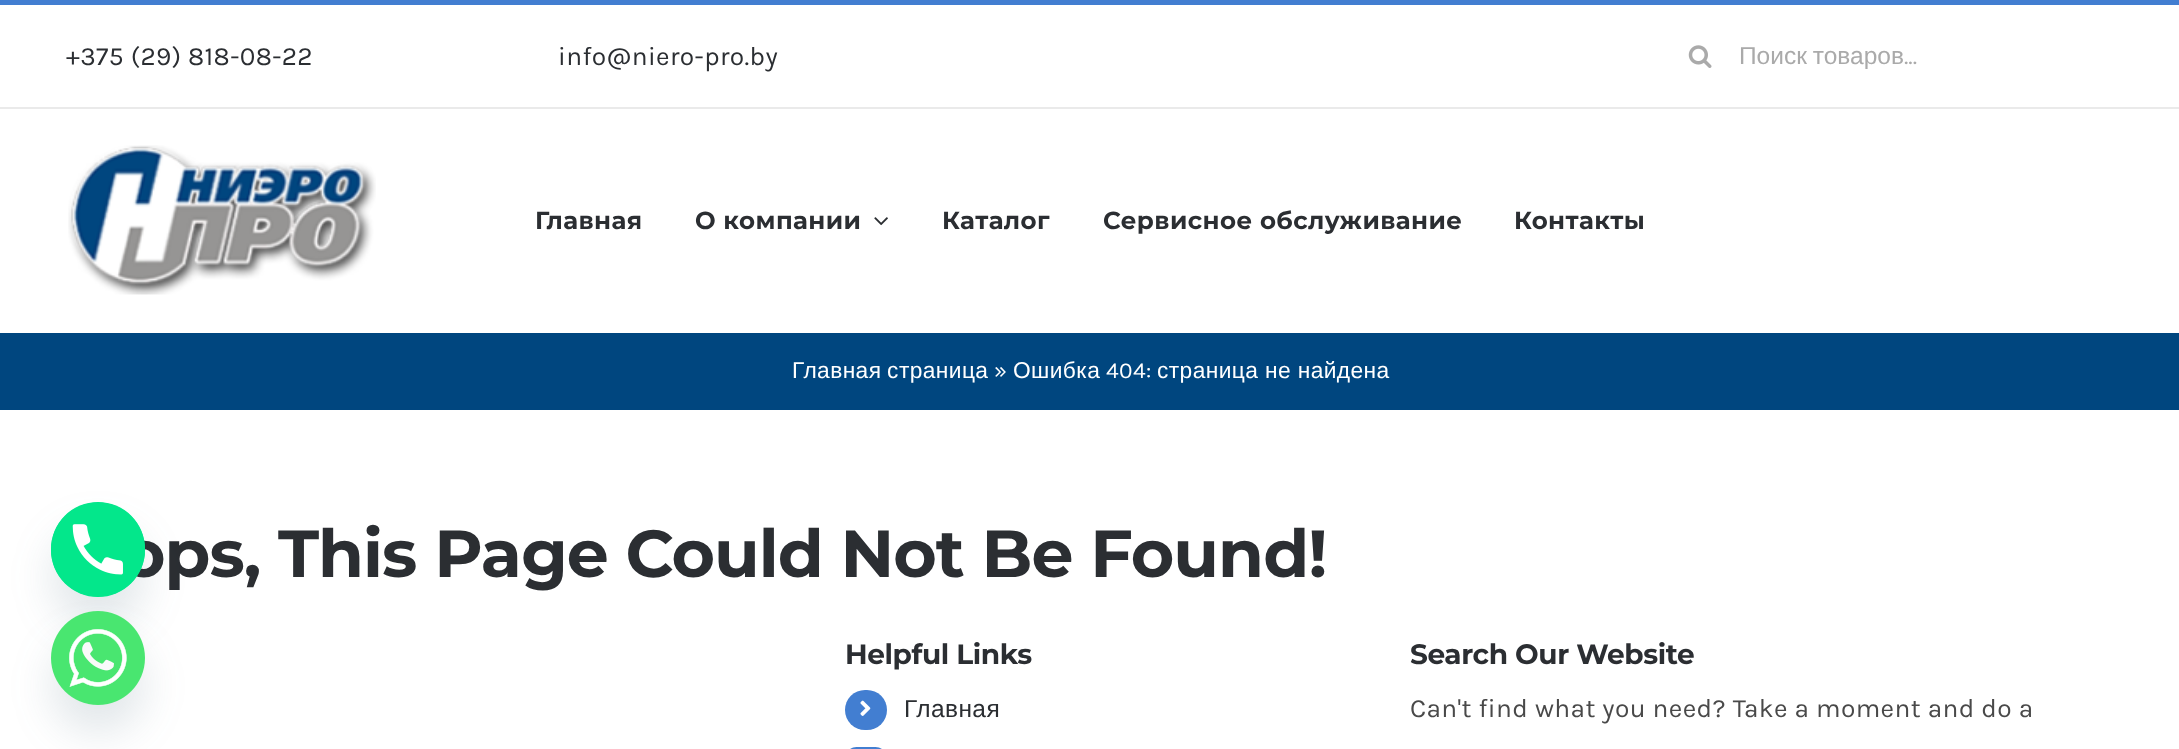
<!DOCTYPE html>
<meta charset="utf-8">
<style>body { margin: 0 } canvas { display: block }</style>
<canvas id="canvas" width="2179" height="749"></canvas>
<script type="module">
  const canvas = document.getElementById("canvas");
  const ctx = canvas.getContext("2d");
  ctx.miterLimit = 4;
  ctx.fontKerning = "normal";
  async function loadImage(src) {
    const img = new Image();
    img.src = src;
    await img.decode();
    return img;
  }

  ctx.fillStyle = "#ffffff";
  ctx.fillRect(0, 0, 2179, 749);
  ctx.fillStyle = "#427ed1";
  ctx.fillRect(0, 0, 2179, 5);
  ctx.letterSpacing = "0.4px";
  ctx.font = "26.25px Karla";
  ctx.fillStyle = "#2b2e32";
  ctx.fillText("+375 (29) 818-08-22", 66, 65);
  ctx.fillText("info@niero-pro.by", 558, 65);
  ctx.drawImage(await loadImage("img1.png"), 1688, 45, 24, 23);
  ctx.letterSpacing = "0px";
  ctx.wordSpacing = "-1px";
  ctx.font = "24.5px Liberation Sans";
  ctx.fillStyle = "#aaaaaa";
  ctx.fillText("Поиск товаров", 1739, 64);
  ctx.wordSpacing = "0px";
  ctx.font = "24.5px Karla";
  ctx.fillText("...", 1904, 64);
  ctx.fillStyle = "#eaeaea";
  ctx.fillRect(0, 107, 2179, 2);
  ctx.drawImage(await loadImage("img2.png"), 68, 145, 308, 150);
  ctx.letterSpacing = "0.4px";
  ctx.font = "100 24.5px Montserrat";
  ctx.fillStyle = "#2b2e32";
  ctx.fillText("Главная", 535, 229);
  ctx.fillText("О компании", 695, 229);
  ctx.drawImage(await loadImage("img3.png"), 874, 217, 14, 9);
  ctx.fillText("Каталог", 942, 229);
  ctx.fillText("Сервисное обслуживание", 1103, 229);
  ctx.fillText("Контакты", 1514, 229);
  ctx.fillStyle = "#00467f";
  ctx.fillRect(0, 333, 2179, 77);
  ctx.wordSpacing = "-1px";
  ctx.font = "22.75px Liberation Sans";
  ctx.fillStyle = "#ffffff";
  ctx.fillText("Главная страница", 792, 378);
  ctx.wordSpacing = "0px";
  ctx.font = "22.75px Karla";
  ctx.fillText("»", 994, 378);
  ctx.font = "22.75px Liberation Sans";
  ctx.fillText("Ошибка", 1013, 378);
  ctx.font = "22.75px Karla";
  ctx.fillText("404:", 1106, 378);
  ctx.font = "22.75px Liberation Sans";
  ctx.fillText("страница не найдена", 1157, 378);
  ctx.letterSpacing = "-1px";
  ctx.font = "100 66.5px Montserrat";
  ctx.fillStyle = "#2b2e32";
  ctx.fillText("ops, This Page Could Not Be Found!", 122, 577);
  ctx.letterSpacing = "-0.4px";
  ctx.font = "100 28px Montserrat";
  ctx.fillText("Helpful Links", 845, 664);
  ctx.fillStyle = "#427ed1";
  ctx.beginPath();
  ctx.roundRect(845, 690, 42, 40, 20);
  ctx.fill();
  ctx.drawImage(await loadImage("img4.png"), 860, 700, 11, 16);
  ctx.letterSpacing = "0.4px";
  ctx.font = "24.5px Liberation Sans";
  ctx.fillStyle = "#2b2e32";
  ctx.fillText("Главная", 904, 717);
  ctx.fillStyle = "#427ed1";
  ctx.beginPath();
  ctx.roundRect(845, 747, 42, 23, 21);
  ctx.fill();
  ctx.letterSpacing = "-0.4px";
  ctx.font = "100 28px Montserrat";
  ctx.fillStyle = "#2b2e32";
  ctx.fillText("Search Our Website", 1410, 664);
  ctx.letterSpacing = "0.4px";
  ctx.font = "26.25px Karla";
  ctx.fillStyle = "#494949";
  ctx.fillText("Can't find what you need? Take a moment and do a", 1410, 717);
  ctx.fillStyle = "rgba(73, 104, 126, 0.16)";
  ctx.filter = "blur(21px)";
  ctx.beginPath();
  ctx.roundRect(51, 530, 94, 95, 47);
  ctx.fill();
  ctx.filter = "none";
  ctx.fillStyle = "#03e78b";
  ctx.beginPath();
  ctx.roundRect(51, 502, 94, 95, 47);
  ctx.fill();
  ctx.drawImage(await loadImage("img5.png"), 51, 502, 94, 95);
  ctx.fillStyle = "rgba(73, 104, 126, 0.16)";
  ctx.filter = "blur(21px)";
  ctx.beginPath();
  ctx.roundRect(51, 639, 94, 94, 47);
  ctx.fill();
  ctx.filter = "none";
  ctx.drawImage(await loadImage("img6.png"), 51, 611, 94, 94);
</script>
